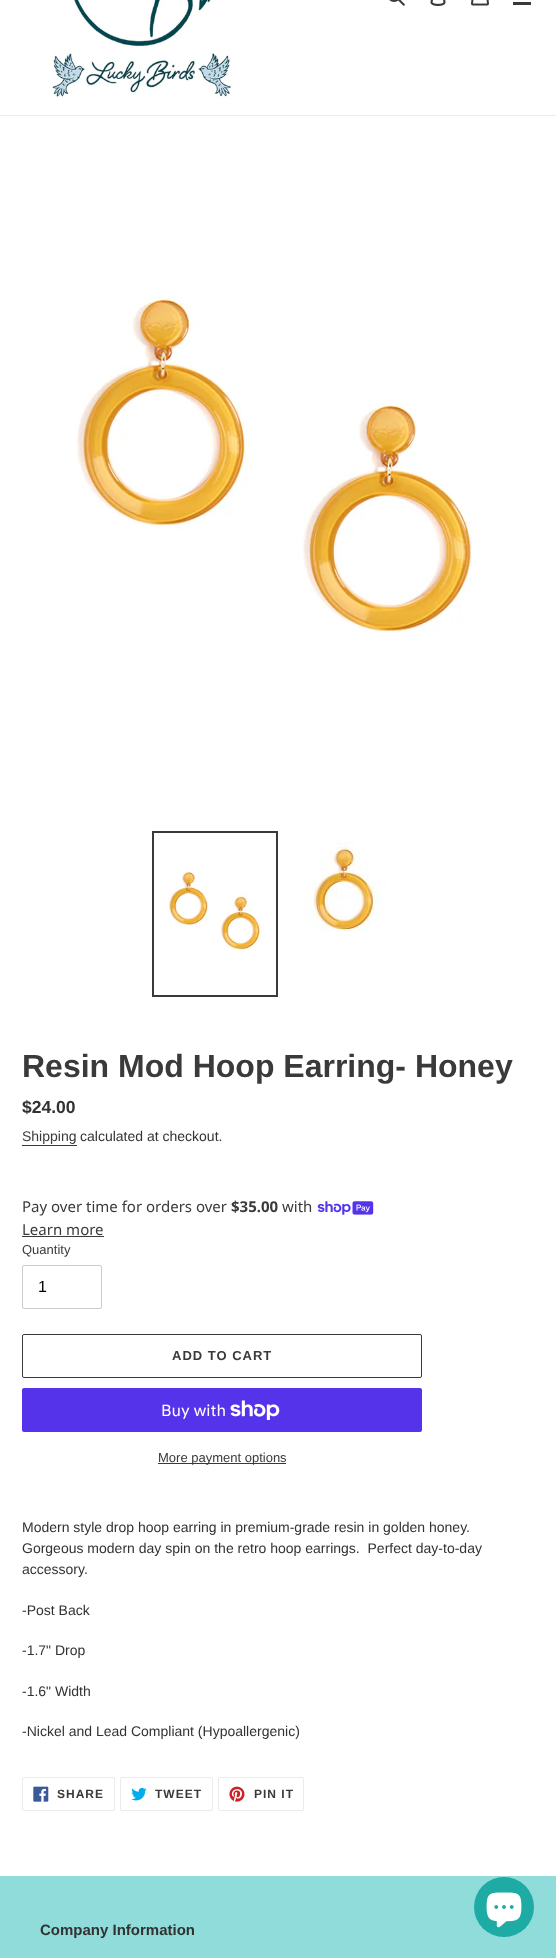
<!DOCTYPE html>
<meta charset="utf-8">
<style>body { margin: 0 } canvas { display: block }</style>
<canvas id="canvas" width="556" height="1958"></canvas>
<script type="module">
  const canvas = document.getElementById("canvas");
  const ctx = canvas.getContext("2d");
  ctx.miterLimit = 4;
  ctx.fontKerning = "normal";
  async function loadImage(src) {
    const img = new Image();
    img.src = src;
    await img.decode();
    return img;
  }

  ctx.fillStyle = "#ffffff";
  ctx.fillRect(0, 0, 556, 1958);
  ctx.fillStyle = "#ebebeb";
  ctx.fillRect(0, 115, 556, 1);
  ctx.drawImage(await loadImage("img1.png"), 52, 0, 179, 100);
  ctx.drawImage(await loadImage("img2.png"), 389, 0, 16, 6);
  ctx.drawImage(await loadImage("img3.png"), 430, 0, 16, 6);
  ctx.drawImage(await loadImage("img4.png"), 471, 0, 18, 6);
  ctx.fillStyle = "#3a3a3a";
  ctx.fillRect(513, 2, 18, 3);
  ctx.drawImage(await loadImage("img5.png"), 76, 297, 396, 335);
  ctx.strokeStyle = "#3a3a3a";
  ctx.lineWidth = 2;
  ctx.strokeRect(153, 832, 124, 164);
  ctx.drawImage(await loadImage("img6.png"), 168, 871, 96, 80);
  ctx.drawImage(await loadImage("img7.png"), 305, 835, 81, 97);
  ctx.font = "bold 32px Liberation Sans";
  ctx.fillText("Resin Mod Hoop Earring- Honey", 22, 1077);
  ctx.font = "bold 17.5px Liberation Sans";
  ctx.fillStyle = "#333232";
  ctx.fillText("$24.00", 22, 1113);
  ctx.font = "14px Liberation Sans";
  ctx.fillStyle = "#3a3a3a";
  ctx.fillText("Shipping", 22, 1141);
  ctx.fillRect(22, 1145, 55, 1);
  ctx.fillStyle = "#333232";
  ctx.fillText("calculated at checkout.", 80, 1141);
  ctx.font = "15px Noto Sans";
  ctx.fillStyle = "#3a3a3a";
  ctx.fillText("Pay over time for orders over", 22, 1212);
  ctx.font = "bold 15px Noto Sans";
  ctx.fillText("$35.00", 231, 1212);
  ctx.font = "15px Noto Sans";
  ctx.fillText("with", 282, 1212);
  ctx.drawImage(await loadImage("img8.png"), 317, 1201, 57, 14);
  ctx.fillText("Learn more", 22, 1235);
  ctx.fillRect(22, 1236, 82, 1);
  ctx.font = "13px Liberation Sans";
  ctx.fillText("Quantity", 22, 1254);
  ctx.beginPath();
  ctx.roundRect(22.5, 1265.5, 79, 43, 1.5);
  ctx.strokeStyle = "#cccccc";
  ctx.lineWidth = 1;
  ctx.stroke();
  ctx.font = "16px Liberation Sans";
  ctx.fillStyle = "#000000";
  ctx.fillText("1", 38, 1292);
  ctx.beginPath();
  ctx.roundRect(22.5, 1334.5, 399, 43, 1.5);
  ctx.strokeStyle = "#3a3a3a";
  ctx.stroke();
  ctx.letterSpacing = "1px";
  ctx.font = "bold 13px Liberation Sans";
  ctx.fillStyle = "#3a3a3a";
  ctx.fillText("ADD TO CART", 172, 1360);
  ctx.fillStyle = "#5433eb";
  ctx.beginPath();
  ctx.roundRect(22, 1388, 400, 44, 2);
  ctx.fill();
  ctx.letterSpacing = "0px";
  ctx.font = "16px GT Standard";
  ctx.fillStyle = "#ffffff";
  ctx.fillText("Buy with", 161, 1416);
  ctx.drawImage(await loadImage("img9.png"), 230, 1400, 50, 20);
  ctx.fillStyle = "#3a3a3a";
  ctx.fillRect(158, 1463, 128, 1);
  ctx.font = "13px Liberation Sans";
  ctx.fillText("More payment options", 158, 1462);
  ctx.font = "14px Liberation Sans";
  ctx.fillStyle = "#333232";
  ctx.fillText("Modern style drop hoop earring in premium-grade resin in golden honey.", 22, 1532);
  ctx.fillText("Gorgeous modern day spin on the retro hoop earrings.  Perfect day-to-day", 22, 1553);
  ctx.fillText("accessory.", 22, 1574);
  ctx.fillText("-Post Back", 22, 1615);
  ctx.fillText("-1.7\" Drop", 22, 1655);
  ctx.fillText("-1.6\" Width", 22, 1696);
  ctx.fillText("-Nickel and Lead Compliant (Hypoallergenic)", 22, 1736);
  ctx.beginPath();
  ctx.roundRect(22.5, 1777.5, 92, 33, 1.5);
  ctx.strokeStyle = "#ebebeb";
  ctx.stroke();
  ctx.drawImage(await loadImage("img10.png"), 33, 1786, 16, 16);
  ctx.letterSpacing = "1px";
  ctx.font = "bold 12px Liberation Sans";
  ctx.fillStyle = "#3a3a3a";
  ctx.fillText("SHARE", 57, 1798);
  ctx.beginPath();
  ctx.roundRect(120.5, 1777.5, 92, 33, 1.5);
  ctx.stroke();
  ctx.drawImage(await loadImage("img11.png"), 131, 1787, 16, 14);
  ctx.fillText("TWEET", 155, 1798);
  ctx.beginPath();
  ctx.roundRect(218.5, 1777.5, 85, 33, 1.5);
  ctx.stroke();
  ctx.drawImage(await loadImage("img12.png"), 229, 1786, 16, 16);
  ctx.fillText("PIN IT", 254, 1798);
  ctx.fillStyle = "#8fdcdb";
  ctx.fillRect(0, 1876, 556, 82);
  ctx.letterSpacing = "0px";
  ctx.font = "bold 15px Liberation Sans";
  ctx.fillStyle = "#333232";
  ctx.fillText("Company Information", 40, 1935);
  ctx.fillStyle = "#1daba4";
  ctx.beginPath();
  ctx.arc(504, 1907, 30, 0, Math.PI * 2);
  ctx.fill();
  ctx.drawImage(await loadImage("img13.png"), 486, 1892, 36, 36);
</script>
